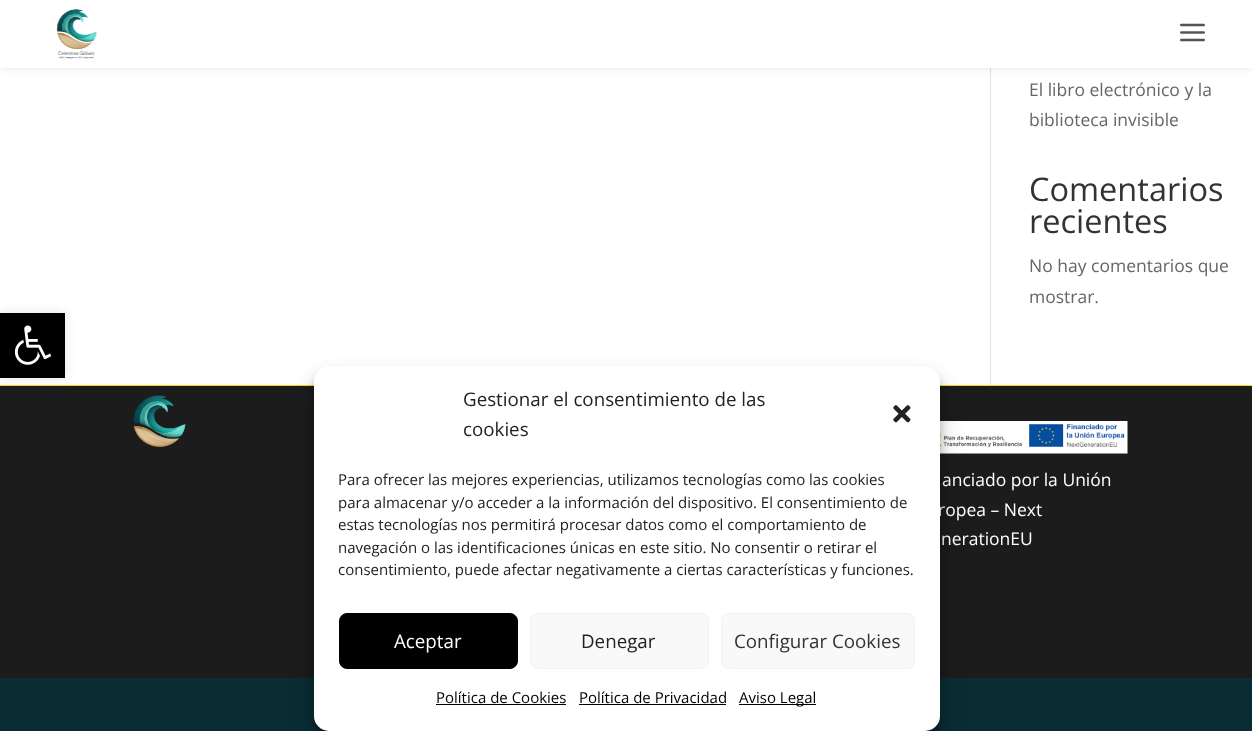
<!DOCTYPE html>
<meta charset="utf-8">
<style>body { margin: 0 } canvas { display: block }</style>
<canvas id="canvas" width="1252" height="731"></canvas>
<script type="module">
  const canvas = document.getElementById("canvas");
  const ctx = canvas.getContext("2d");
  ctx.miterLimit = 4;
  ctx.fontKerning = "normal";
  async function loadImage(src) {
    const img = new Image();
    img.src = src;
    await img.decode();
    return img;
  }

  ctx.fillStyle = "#ffffff";
  ctx.fillRect(0, 0, 1252, 731);
  ctx.fillStyle = "#1c1c1c";
  ctx.fillRect(0, 386, 1252, 292);
  ctx.fillStyle = "#fcd21d";
  ctx.fillRect(0, 385, 1252, 1);
  ctx.fillStyle = "rgba(0, 0, 0, 0.1)";
  ctx.filter = "blur(6px)";
  ctx.beginPath();
  ctx.rect(0, 313, 65, 65);
  ctx.fill();
  ctx.filter = "none";
  ctx.fillStyle = "#000000";
  ctx.fillRect(0, 313, 65, 65);
  ctx.drawImage(await loadImage("img1.png"), 14, 325, 38, 40);
  ctx.fillStyle = "#e2e2e2";
  ctx.fillRect(990, 68, 1, 317);
  ctx.fillStyle = "rgba(0, 0, 0, 0.1)";
  ctx.filter = "blur(4.5px)";
  ctx.beginPath();
  ctx.rect(0, 0, 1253, 68);
  ctx.fill();
  ctx.filter = "none";
  ctx.fillStyle = "#ffffff";
  ctx.fillRect(0, 0, 1252, 68);
  ctx.drawImage(await loadImage("img2.png"), 56, 9, 42, 50);
  ctx.drawImage(await loadImage("img3.png"), 1180, 23, 25, 19);
  ctx.font = "17.5px Open Sans";
  ctx.fillStyle = "#666666";
  ctx.fillText("El libro electrónico y la", 1029, 96);
  ctx.fillText("biblioteca invisible", 1029, 126);
  ctx.font = "32.5px Open Sans";
  ctx.fillStyle = "#333333";
  ctx.fillText("Comentarios", 1029, 201);
  ctx.fillText("recientes", 1029, 233);
  ctx.font = "17.5px Open Sans";
  ctx.fillStyle = "#666666";
  ctx.fillText("No hay comentarios que", 1029, 272);
  ctx.fillText("mostrar.", 1029, 303);
  ctx.drawImage(await loadImage("img4.png"), 133, 395, 53, 53);
  ctx.drawImage(await loadImage("img5.png"), 940, 421, 188, 33);
  ctx.fillStyle = "#ffffff";
  ctx.fillText("anciado por la Unión", 942, 486);
  ctx.fillText("ropea – Next", 938, 516);
  ctx.fillText("nerationEU", 941, 545);
  ctx.fillStyle = "#092d33";
  ctx.fillRect(0, 678, 1252, 53);
  ctx.fillStyle = "rgba(0, 0, 0, 0.23)";
  ctx.filter = "blur(4px)";
  ctx.beginPath();
  ctx.roundRect(314, 374, 626, 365, 15);
  ctx.fill();
  ctx.filter = "none";
  ctx.fillStyle = "rgba(0, 0, 0, 0.19)";
  ctx.filter = "blur(12.5px)";
  ctx.beginPath();
  ctx.roundRect(314, 379, 626, 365, 15);
  ctx.fill();
  ctx.filter = "none";
  ctx.fillStyle = "#ffffff";
  ctx.beginPath();
  ctx.roundRect(314, 366, 626, 365, 15);
  ctx.fill();
  ctx.font = "18.75px Open Sans";
  ctx.fillStyle = "#222222";
  ctx.fillText("Gestionar el consentimiento de las", 463, 406);
  ctx.fillText("cookies", 463, 436);
  ctx.drawImage(await loadImage("img6.png"), 893, 405, 18, 18);
  ctx.font = "15px Open Sans";
  ctx.fillText("Para ofrecer las mejores experiencias, utilizamos tecnologías como las cookies", 338, 485);
  ctx.fillText("para almacenar y/o acceder a la información del dispositivo. El consentimiento de", 338, 508);
  ctx.fillText("estas tecnologías nos permitirá procesar datos como el comportamiento de", 338, 530);
  ctx.fillText("navegación o las identificaciones únicas en este sitio. No consentir o retirar el", 338, 553);
  ctx.fillText("consentimiento, puede afectar negativamente a ciertas características y funciones.", 338, 575);
  ctx.fillStyle = "#000000";
  ctx.beginPath();
  ctx.roundRect(339.5, 613.5, 178, 55, 7.5);
  ctx.fill();
  ctx.strokeStyle = "#000000";
  ctx.stroke();
  ctx.font = "18.75px Open Sans";
  ctx.fillStyle = "#ffffff";
  ctx.fillText("Aceptar", 394, 648);
  ctx.fillStyle = "#f9f9f9";
  ctx.beginPath();
  ctx.roundRect(530.5, 613.5, 178, 55, 7.5);
  ctx.fill();
  ctx.strokeStyle = "#f2f2f2";
  ctx.stroke();
  ctx.fillStyle = "#222222";
  ctx.fillText("Denegar", 581, 648);
  ctx.fillStyle = "#f9f9f9";
  ctx.beginPath();
  ctx.roundRect(721.5, 613.5, 193, 55, 7.5);
  ctx.fill();
  ctx.stroke();
  ctx.fillStyle = "#333333";
  ctx.fillText("Configurar Cookies", 734, 648);
  ctx.font = "15px Open Sans";
  ctx.fillStyle = "#000000";
  ctx.fillText("Política de Cookies", 436, 703);
  ctx.fillRect(436, 704, 130, 1);
  ctx.fillText("Política de Privacidad", 579, 703);
  ctx.fillRect(579, 704, 147, 1);
  ctx.fillRect(739, 704, 77, 1);
  ctx.fillText("Aviso Legal", 739, 703);
</script>
